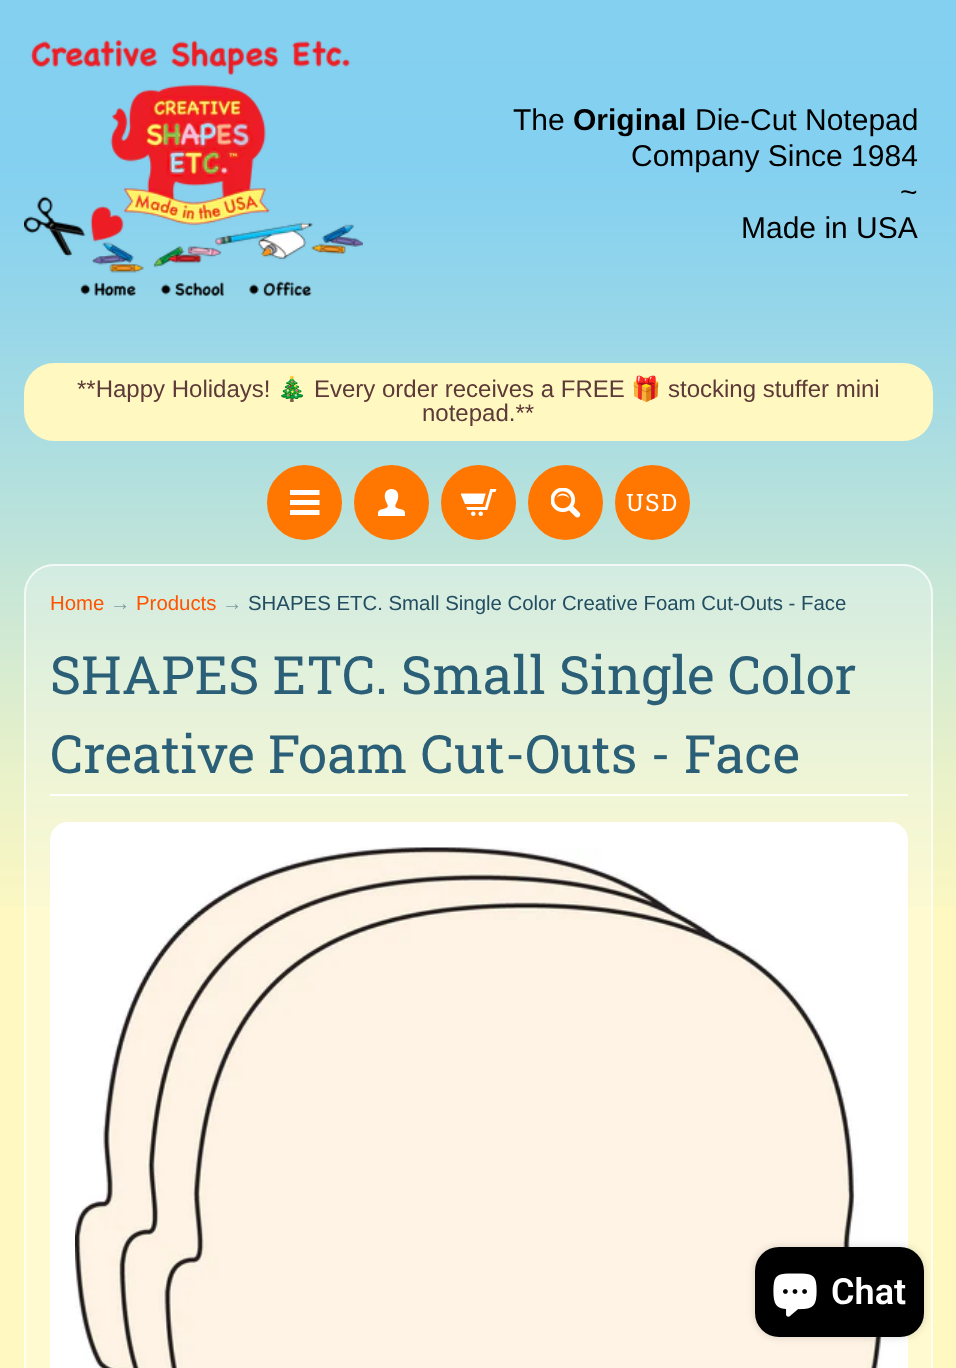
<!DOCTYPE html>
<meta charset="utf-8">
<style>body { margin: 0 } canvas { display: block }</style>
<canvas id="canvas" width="956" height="1368"></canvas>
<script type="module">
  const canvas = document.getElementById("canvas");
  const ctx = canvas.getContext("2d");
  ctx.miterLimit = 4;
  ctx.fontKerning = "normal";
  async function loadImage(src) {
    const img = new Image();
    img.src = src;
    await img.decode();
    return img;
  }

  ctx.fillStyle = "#fff9c1";
  ctx.fillRect(0, 0, 956, 1368);
  ctx.drawImage(await loadImage("img1.png"), 0, 0, 956, 907);
  ctx.drawImage(await loadImage("img2.png"), 24, 40, 339, 257);
  ctx.font = "30px Arimo";
  ctx.fillStyle = "#000000";
  ctx.fillText("The", 513, 130);
  ctx.font = "bold 30px Arimo";
  ctx.fillText("Original", 573, 130);
  ctx.font = "30px Arimo";
  ctx.fillText("Die-Cut Notepad", 695, 130);
  ctx.fillText("Company Since 1984", 631, 166);
  ctx.fillText("~", 900, 202);
  ctx.fillText("Made in USA", 741, 238);
  ctx.fillStyle = "#fff9c1";
  ctx.beginPath();
  ctx.roundRect(24, 363, 909, 78, 30);
  ctx.fill();
  ctx.font = "24px Arimo";
  ctx.fillStyle = "#5d3937";
  ctx.fillText("**Happy Holidays!", 77, 397);
  ctx.font = "24px Noto Color Emoji";
  ctx.fillText("🎄", 277, 397);
  ctx.font = "24px Arimo";
  ctx.fillText("Every order receives a FREE", 314, 397);
  ctx.font = "24px Noto Color Emoji";
  ctx.fillText("🎁", 631, 397);
  ctx.font = "24px Arimo";
  ctx.fillText("stocking stuffer mini", 668, 397);
  ctx.fillText("notepad.**", 422, 421);
  ctx.fillStyle = "#ff7700";
  ctx.beginPath();
  ctx.arc(304.5, 502.5, 35, 0, Math.PI * 2);
  ctx.fill();
  ctx.strokeStyle = "#ff7700";
  ctx.lineWidth = 5;
  ctx.stroke();
  ctx.drawImage(await loadImage("img3.png"), 290, 490, 30, 25);
  ctx.beginPath();
  ctx.arc(391.5, 502.5, 35, 0, Math.PI * 2);
  ctx.fill();
  ctx.stroke();
  ctx.drawImage(await loadImage("img4.png"), 378, 489, 27, 27);
  ctx.beginPath();
  ctx.arc(478.5, 502.5, 35, 0, Math.PI * 2);
  ctx.fill();
  ctx.stroke();
  ctx.drawImage(await loadImage("img5.png"), 461, 489, 36, 27);
  ctx.beginPath();
  ctx.arc(565.5, 502.5, 35, 0, Math.PI * 2);
  ctx.fill();
  ctx.stroke();
  ctx.drawImage(await loadImage("img6.png"), 551, 488, 30, 30);
  ctx.beginPath();
  ctx.arc(652.5, 502.5, 35, 0, Math.PI * 2);
  ctx.fill();
  ctx.stroke();
  ctx.letterSpacing = "1.5px";
  ctx.font = "24px Roboto Slab";
  ctx.fillStyle = "#ffffff";
  ctx.fillText("USD", 626, 511);
  ctx.fillStyle = "rgba(255, 255, 255, 0.25)";
  ctx.beginPath();
  ctx.roundRect(24, 564, 909, 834, 30);
  ctx.fill();
  ctx.beginPath();
  ctx.roundRect(25, 565, 907, 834, 29);
  ctx.strokeStyle = "rgba(255, 255, 255, 0.7)";
  ctx.lineWidth = 2;
  ctx.stroke();
  ctx.letterSpacing = "0px";
  ctx.font = "20.4px Arimo";
  ctx.fillStyle = "#ff5300";
  ctx.fillText("Home", 50, 610);
  ctx.font = "20.4px Liberation Sans";
  ctx.fillStyle = "#7d9da0";
  ctx.fillText("→", 110, 610);
  ctx.font = "20.4px Arimo";
  ctx.fillStyle = "#ff5300";
  ctx.fillText("Products", 136, 610);
  ctx.font = "20.4px Liberation Sans";
  ctx.fillStyle = "#7d9da0";
  ctx.fillText("→", 222, 610);
  ctx.font = "20.4px Arimo";
  ctx.fillStyle = "#234d61";
  ctx.fillText("SHAPES ETC. Small Single Color Creative Foam Cut-Outs - Face", 248, 610);
  ctx.fillStyle = "#ffffff";
  ctx.fillRect(50, 794, 858, 2);
  ctx.font = "52.75px Roboto Slab";
  ctx.fillStyle = "#2b5f77";
  ctx.fillText("SHAPES ETC. Small Single Color", 50, 694);
  ctx.fillText("Creative Foam Cut-Outs - Face", 50, 773);
  ctx.fillStyle = "#ffffff";
  ctx.beginPath();
  ctx.roundRect(51, 823, 856, 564, 17);
  ctx.fill();
  ctx.strokeStyle = "#ffffff";
  ctx.stroke();
  ctx.drawImage(await loadImage("img7.png"), 75, 847, 807, 521);
  ctx.fillStyle = "rgba(0, 0, 0, 0.15)";
  ctx.filter = "blur(4px)";
  ctx.beginPath();
  ctx.roundRect(755, 1247, 169, 90, 24);
  ctx.fill();
  ctx.filter = "none";
  ctx.fillStyle = "#000000";
  ctx.beginPath();
  ctx.roundRect(755, 1247, 169, 90, 24);
  ctx.fill();
  ctx.drawImage(await loadImage("img8.png"), 773, 1273, 44, 44);
  ctx.font = "600 36px Roboto";
  ctx.fillStyle = "#ffffff";
  ctx.fillText("Chat", 831, 1304);
</script>
